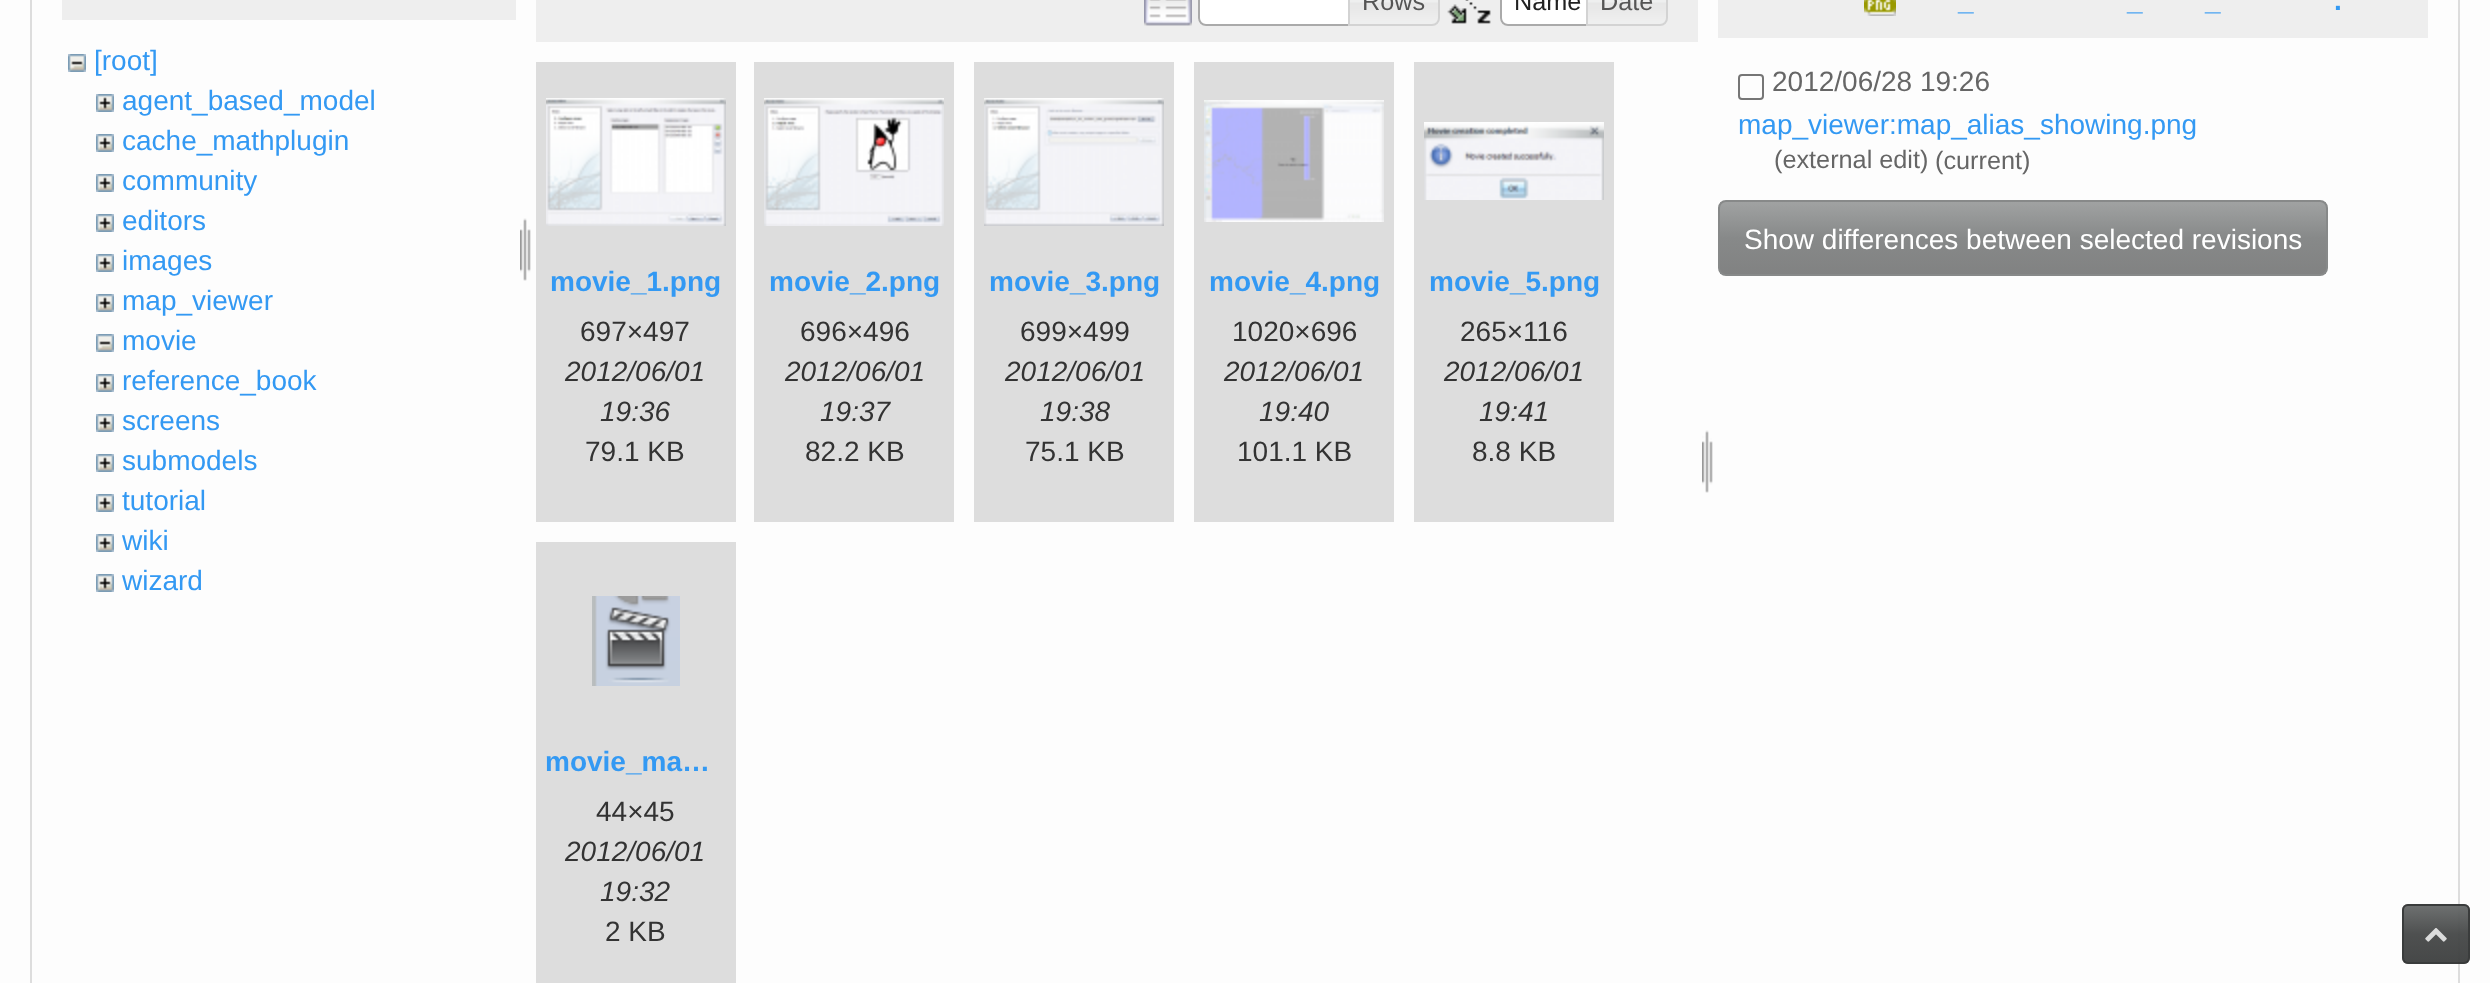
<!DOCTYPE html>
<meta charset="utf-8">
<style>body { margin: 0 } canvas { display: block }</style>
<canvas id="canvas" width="2490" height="983"></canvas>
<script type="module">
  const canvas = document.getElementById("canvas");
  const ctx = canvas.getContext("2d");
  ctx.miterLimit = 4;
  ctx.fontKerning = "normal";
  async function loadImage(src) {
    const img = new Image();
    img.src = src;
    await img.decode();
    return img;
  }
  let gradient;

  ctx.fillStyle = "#fdfdfd";
  ctx.fillRect(0, 0, 2490, 983);
  ctx.strokeStyle = "#dddddd";
  ctx.lineWidth = 2;
  ctx.strokeRect(31, -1, 2428, 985);
  ctx.fillStyle = "#eeeeee";
  ctx.fillRect(62, 0, 454, 20);
  ctx.drawImage(await loadImage("img1.png"), 68, 54, 18, 18);
  ctx.font = "28px Liberation Sans";
  ctx.fillStyle = "#3399f3";
  ctx.fillText("[root]", 94, 70);
  ctx.drawImage(await loadImage("img2.png"), 96, 94, 18, 18);
  ctx.fillText("agent_based_model", 122, 110);
  ctx.drawImage(await loadImage("img2.png"), 96, 134, 18, 18);
  ctx.fillText("cache_mathplugin", 122, 150);
  ctx.drawImage(await loadImage("img2.png"), 96, 174, 18, 18);
  ctx.fillText("community", 122, 190);
  ctx.drawImage(await loadImage("img2.png"), 96, 214, 18, 18);
  ctx.fillText("editors", 122, 230);
  ctx.drawImage(await loadImage("img2.png"), 96, 254, 18, 18);
  ctx.fillText("images", 122, 270);
  ctx.drawImage(await loadImage("img2.png"), 96, 294, 18, 18);
  ctx.fillText("map_viewer", 122, 310);
  ctx.drawImage(await loadImage("img1.png"), 96, 334, 18, 18);
  ctx.fillText("movie", 122, 350);
  ctx.drawImage(await loadImage("img2.png"), 96, 374, 18, 18);
  ctx.fillText("reference_book", 122, 390);
  ctx.drawImage(await loadImage("img2.png"), 96, 414, 18, 18);
  ctx.fillText("screens", 122, 430);
  ctx.drawImage(await loadImage("img2.png"), 96, 454, 18, 18);
  ctx.fillText("submodels", 122, 470);
  ctx.drawImage(await loadImage("img2.png"), 96, 494, 18, 18);
  ctx.fillText("tutorial", 122, 510);
  ctx.drawImage(await loadImage("img2.png"), 96, 534, 18, 18);
  ctx.fillText("wiki", 122, 550);
  ctx.drawImage(await loadImage("img2.png"), 96, 574, 18, 18);
  ctx.fillText("wizard", 122, 590);
  ctx.drawImage(await loadImage("img3.png"), 520, 218, 11, 63);
  ctx.fillStyle = "#eeeeee";
  ctx.fillRect(536, 0, 1162, 42);
  ctx.drawImage(await loadImage("img4.png"), 1144, 0, 48, 26);
  ctx.fillStyle = "#ffffff";
  ctx.beginPath();
  ctx.moveTo(1206, -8);
  ctx.lineTo(1358, -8);
  ctx.lineTo(1358, 26);
  ctx.lineTo(1206, 26);
  ctx.bezierCurveTo(1201.5, 26, 1198, 22.5, 1198, 18);
  ctx.lineTo(1198, 0);
  ctx.bezierCurveTo(1198, -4.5, 1201.5, -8, 1206, -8);
  ctx.closePath();
  ctx.fill();
  ctx.fillStyle = "#fcfcfc";
  ctx.fillRect(1203, 25, 1, 1);
  ctx.beginPath();
  ctx.moveTo(1206, -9);
  ctx.lineTo(1357, -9);
  ctx.lineTo(1357, 25);
  ctx.lineTo(1206, 25);
  ctx.bezierCurveTo(1202, 25, 1199, 22, 1199, 18);
  ctx.lineTo(1199, -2);
  ctx.bezierCurveTo(1199, -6, 1202, -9, 1206, -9);
  ctx.closePath();
  ctx.strokeStyle = "#aaaaaa";
  ctx.stroke();
  ctx.drawImage(await loadImage("img5.png"), 1350, 0, 90, 26);
  ctx.beginPath();
  ctx.moveTo(1349, -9);
  ctx.lineTo(1432, -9);
  ctx.bezierCurveTo(1436, -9, 1439, -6, 1439, -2);
  ctx.lineTo(1439, 18);
  ctx.bezierCurveTo(1439, 22, 1436, 25, 1432, 25);
  ctx.lineTo(1349, 25);
  ctx.closePath();
  ctx.strokeStyle = "#d3d3d3";
  ctx.stroke();
  ctx.font = "25.25px Liberation Sans";
  ctx.fillStyle = "#555555";
  ctx.fillText("Rows", 1362, 10);
  ctx.drawImage(await loadImage("img6.png"), 1447, 0, 44, 24);
  ctx.fillStyle = "#ffffff";
  ctx.beginPath();
  ctx.moveTo(1508, -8);
  ctx.lineTo(1596, -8);
  ctx.lineTo(1596, 26);
  ctx.lineTo(1508, 26);
  ctx.bezierCurveTo(1503.5, 26, 1500, 22.5, 1500, 18);
  ctx.lineTo(1500, 0);
  ctx.bezierCurveTo(1500, -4.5, 1503.5, -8, 1508, -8);
  ctx.closePath();
  ctx.fill();
  ctx.fillStyle = "#fcfcfc";
  ctx.fillRect(1505, 25, 1, 1);
  ctx.beginPath();
  ctx.moveTo(1508, -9);
  ctx.lineTo(1595, -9);
  ctx.lineTo(1595, 25);
  ctx.lineTo(1508, 25);
  ctx.bezierCurveTo(1504, 25, 1501, 22, 1501, 18);
  ctx.lineTo(1501, -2);
  ctx.bezierCurveTo(1501, -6, 1504, -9, 1508, -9);
  ctx.closePath();
  ctx.strokeStyle = "#aaaaaa";
  ctx.stroke();
  ctx.fillStyle = "#212121";
  ctx.fillText("Name", 1514, 10);
  ctx.drawImage(await loadImage("img7.png"), 1588, 0, 80, 26);
  ctx.beginPath();
  ctx.moveTo(1587, -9);
  ctx.lineTo(1660, -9);
  ctx.bezierCurveTo(1664, -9, 1667, -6, 1667, -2);
  ctx.lineTo(1667, 18);
  ctx.bezierCurveTo(1667, 22, 1664, 25, 1660, 25);
  ctx.lineTo(1587, 25);
  ctx.closePath();
  ctx.strokeStyle = "#d3d3d3";
  ctx.stroke();
  ctx.fillStyle = "#555555";
  ctx.fillText("Date", 1600, 10);
  ctx.fillStyle = "#dddddd";
  ctx.fillRect(536, 62, 200, 460);
  ctx.drawImage(await loadImage("img8.png"), 546, 98, 180, 128);
  ctx.font = "bold 28px Liberation Sans";
  ctx.fillStyle = "#3399f3";
  ctx.fillText("movie_1.png", 550, 291);
  ctx.font = "28px Liberation Sans";
  ctx.fillStyle = "#333333";
  ctx.fillText("697×497", 580, 341);
  ctx.font = "italic 28px Liberation Sans";
  ctx.fillText("2012/06/01", 565, 381);
  ctx.fillText("19:36", 600, 421);
  ctx.font = "28px Liberation Sans";
  ctx.fillText("79.1 KB", 585, 461);
  ctx.fillStyle = "#dddddd";
  ctx.fillRect(754, 62, 200, 460);
  ctx.drawImage(await loadImage("img9.png"), 764, 98, 180, 128);
  ctx.font = "bold 28px Liberation Sans";
  ctx.fillStyle = "#3399f3";
  ctx.fillText("movie_2.png", 769, 291);
  ctx.font = "28px Liberation Sans";
  ctx.fillStyle = "#333333";
  ctx.fillText("696×496", 800, 341);
  ctx.font = "italic 28px Liberation Sans";
  ctx.fillText("2012/06/01", 785, 381);
  ctx.fillText("19:37", 820, 421);
  ctx.font = "28px Liberation Sans";
  ctx.fillText("82.2 KB", 805, 461);
  ctx.fillStyle = "#dddddd";
  ctx.fillRect(974, 62, 200, 460);
  ctx.drawImage(await loadImage("img10.png"), 984, 98, 180, 128);
  ctx.font = "bold 28px Liberation Sans";
  ctx.fillStyle = "#3399f3";
  ctx.fillText("movie_3.png", 989, 291);
  ctx.font = "28px Liberation Sans";
  ctx.fillStyle = "#333333";
  ctx.fillText("699×499", 1020, 341);
  ctx.font = "italic 28px Liberation Sans";
  ctx.fillText("2012/06/01", 1005, 381);
  ctx.fillText("19:38", 1040, 421);
  ctx.font = "28px Liberation Sans";
  ctx.fillText("75.1 KB", 1025, 461);
  ctx.fillStyle = "#dddddd";
  ctx.fillRect(1194, 62, 200, 460);
  ctx.drawImage(await loadImage("img11.png"), 1204, 100, 180, 122);
  ctx.font = "bold 28px Liberation Sans";
  ctx.fillStyle = "#3399f3";
  ctx.fillText("movie_4.png", 1209, 291);
  ctx.font = "28px Liberation Sans";
  ctx.fillStyle = "#333333";
  ctx.fillText("1020×696", 1232, 341);
  ctx.font = "italic 28px Liberation Sans";
  ctx.fillText("2012/06/01", 1224, 381);
  ctx.fillText("19:40", 1259, 421);
  ctx.font = "28px Liberation Sans";
  ctx.fillText("101.1 KB", 1237, 461);
  ctx.fillStyle = "#dddddd";
  ctx.fillRect(1414, 62, 200, 460);
  ctx.drawImage(await loadImage("img12.png"), 1424, 122, 180, 78);
  ctx.font = "bold 28px Liberation Sans";
  ctx.fillStyle = "#3399f3";
  ctx.fillText("movie_5.png", 1429, 291);
  ctx.font = "28px Liberation Sans";
  ctx.fillStyle = "#333333";
  ctx.fillText("265×116", 1460, 341);
  ctx.font = "italic 28px Liberation Sans";
  ctx.fillText("2012/06/01", 1444, 381);
  ctx.fillText("19:41", 1479, 421);
  ctx.font = "28px Liberation Sans";
  ctx.fillText("8.8 KB", 1472, 461);
  ctx.fillStyle = "#dddddd";
  ctx.fillRect(536, 542, 200, 441);
  ctx.drawImage(await loadImage("img13.png"), 592, 596, 88, 90);
  ctx.font = "bold 28px Liberation Sans";
  ctx.fillStyle = "#3399f3";
  ctx.fillText("movie_ma…", 545, 771);
  ctx.font = "28px Liberation Sans";
  ctx.fillStyle = "#333333";
  ctx.fillText("44×45", 596, 821);
  ctx.font = "italic 28px Liberation Sans";
  ctx.fillText("2012/06/01", 565, 861);
  ctx.fillText("19:32", 600, 901);
  ctx.font = "28px Liberation Sans";
  ctx.fillText("2 KB", 605, 941);
  ctx.drawImage(await loadImage("img3.png"), 1702, 430, 11, 63);
  ctx.fillStyle = "#eeeeee";
  ctx.fillRect(1718, 0, 710, 38);
  ctx.drawImage(await loadImage("img14.png"), 1864, 0, 32, 16);
  ctx.font = "bold 28px Liberation Sans";
  ctx.fillStyle = "#3399f3";
  ctx.fillText(".", 2334, 10);
  ctx.fillText("_", 1958, 10);
  ctx.fillText("_", 2127, 10);
  ctx.fillText("_", 2205, 10);
  ctx.beginPath();
  ctx.roundRect(1739, 75, 24, 24, 3);
  ctx.strokeStyle = "#767676";
  ctx.stroke();
  ctx.font = "28px Liberation Sans";
  ctx.fillStyle = "#666666";
  ctx.fillText("2012/06/28 19:26", 1772, 91);
  ctx.fillStyle = "#3399f3";
  ctx.fillText("map_viewer:map_alias_showing.png", 1738, 134);
  ctx.font = "25.25px Liberation Sans";
  ctx.fillStyle = "#666666";
  ctx.fillText("(external edit)", 1774, 168);
  ctx.fillText("(current)", 1935, 169);
  ctx.save();
  ctx.beginPath();
  ctx.roundRect(1718, 200, 610, 76, 8);
  ctx.clip();
  gradient = ctx.createLinearGradient(2023, 202, 2023, 274);
  gradient.addColorStop(0, "#a0a2a2");
  gradient.addColorStop(0.5, "#878989");
  gradient.addColorStop(1, "#818282");
  ctx.fillStyle = gradient;
  ctx.fillRect(1720, 202, 606, 72);
  ctx.restore();
  ctx.beginPath();
  ctx.roundRect(1719, 201, 608, 74, 7);
  ctx.strokeStyle = "#878989";
  ctx.stroke();
  ctx.font = "28px Liberation Sans";
  ctx.fillStyle = "#ffffff";
  ctx.fillText("Show differences between selected revisions", 1744, 249);
  ctx.fillStyle = "rgba(71, 73, 73, 0.8)";
  ctx.beginPath();
  ctx.roundRect(2402, 904, 68, 60, 6);
  ctx.fill();
  gradient = ctx.createLinearGradient(2436, 906, 2436, 962);
  gradient.addColorStop(0, "rgba(109, 112, 112, 0.8)");
  gradient.addColorStop(0.5, "rgba(71, 73, 73, 0.8)");
  gradient.addColorStop(1, "rgba(61, 63, 63, 0.8)");
  ctx.fillStyle = gradient;
  ctx.fillRect(2404, 906, 64, 56);
  ctx.beginPath();
  ctx.roundRect(2403, 905, 66, 58, 5);
  ctx.strokeStyle = "rgba(46, 47, 47, 0.8)";
  ctx.stroke();
  ctx.drawImage(await loadImage("img15.png"), 2425, 928, 22, 14);
</script>
